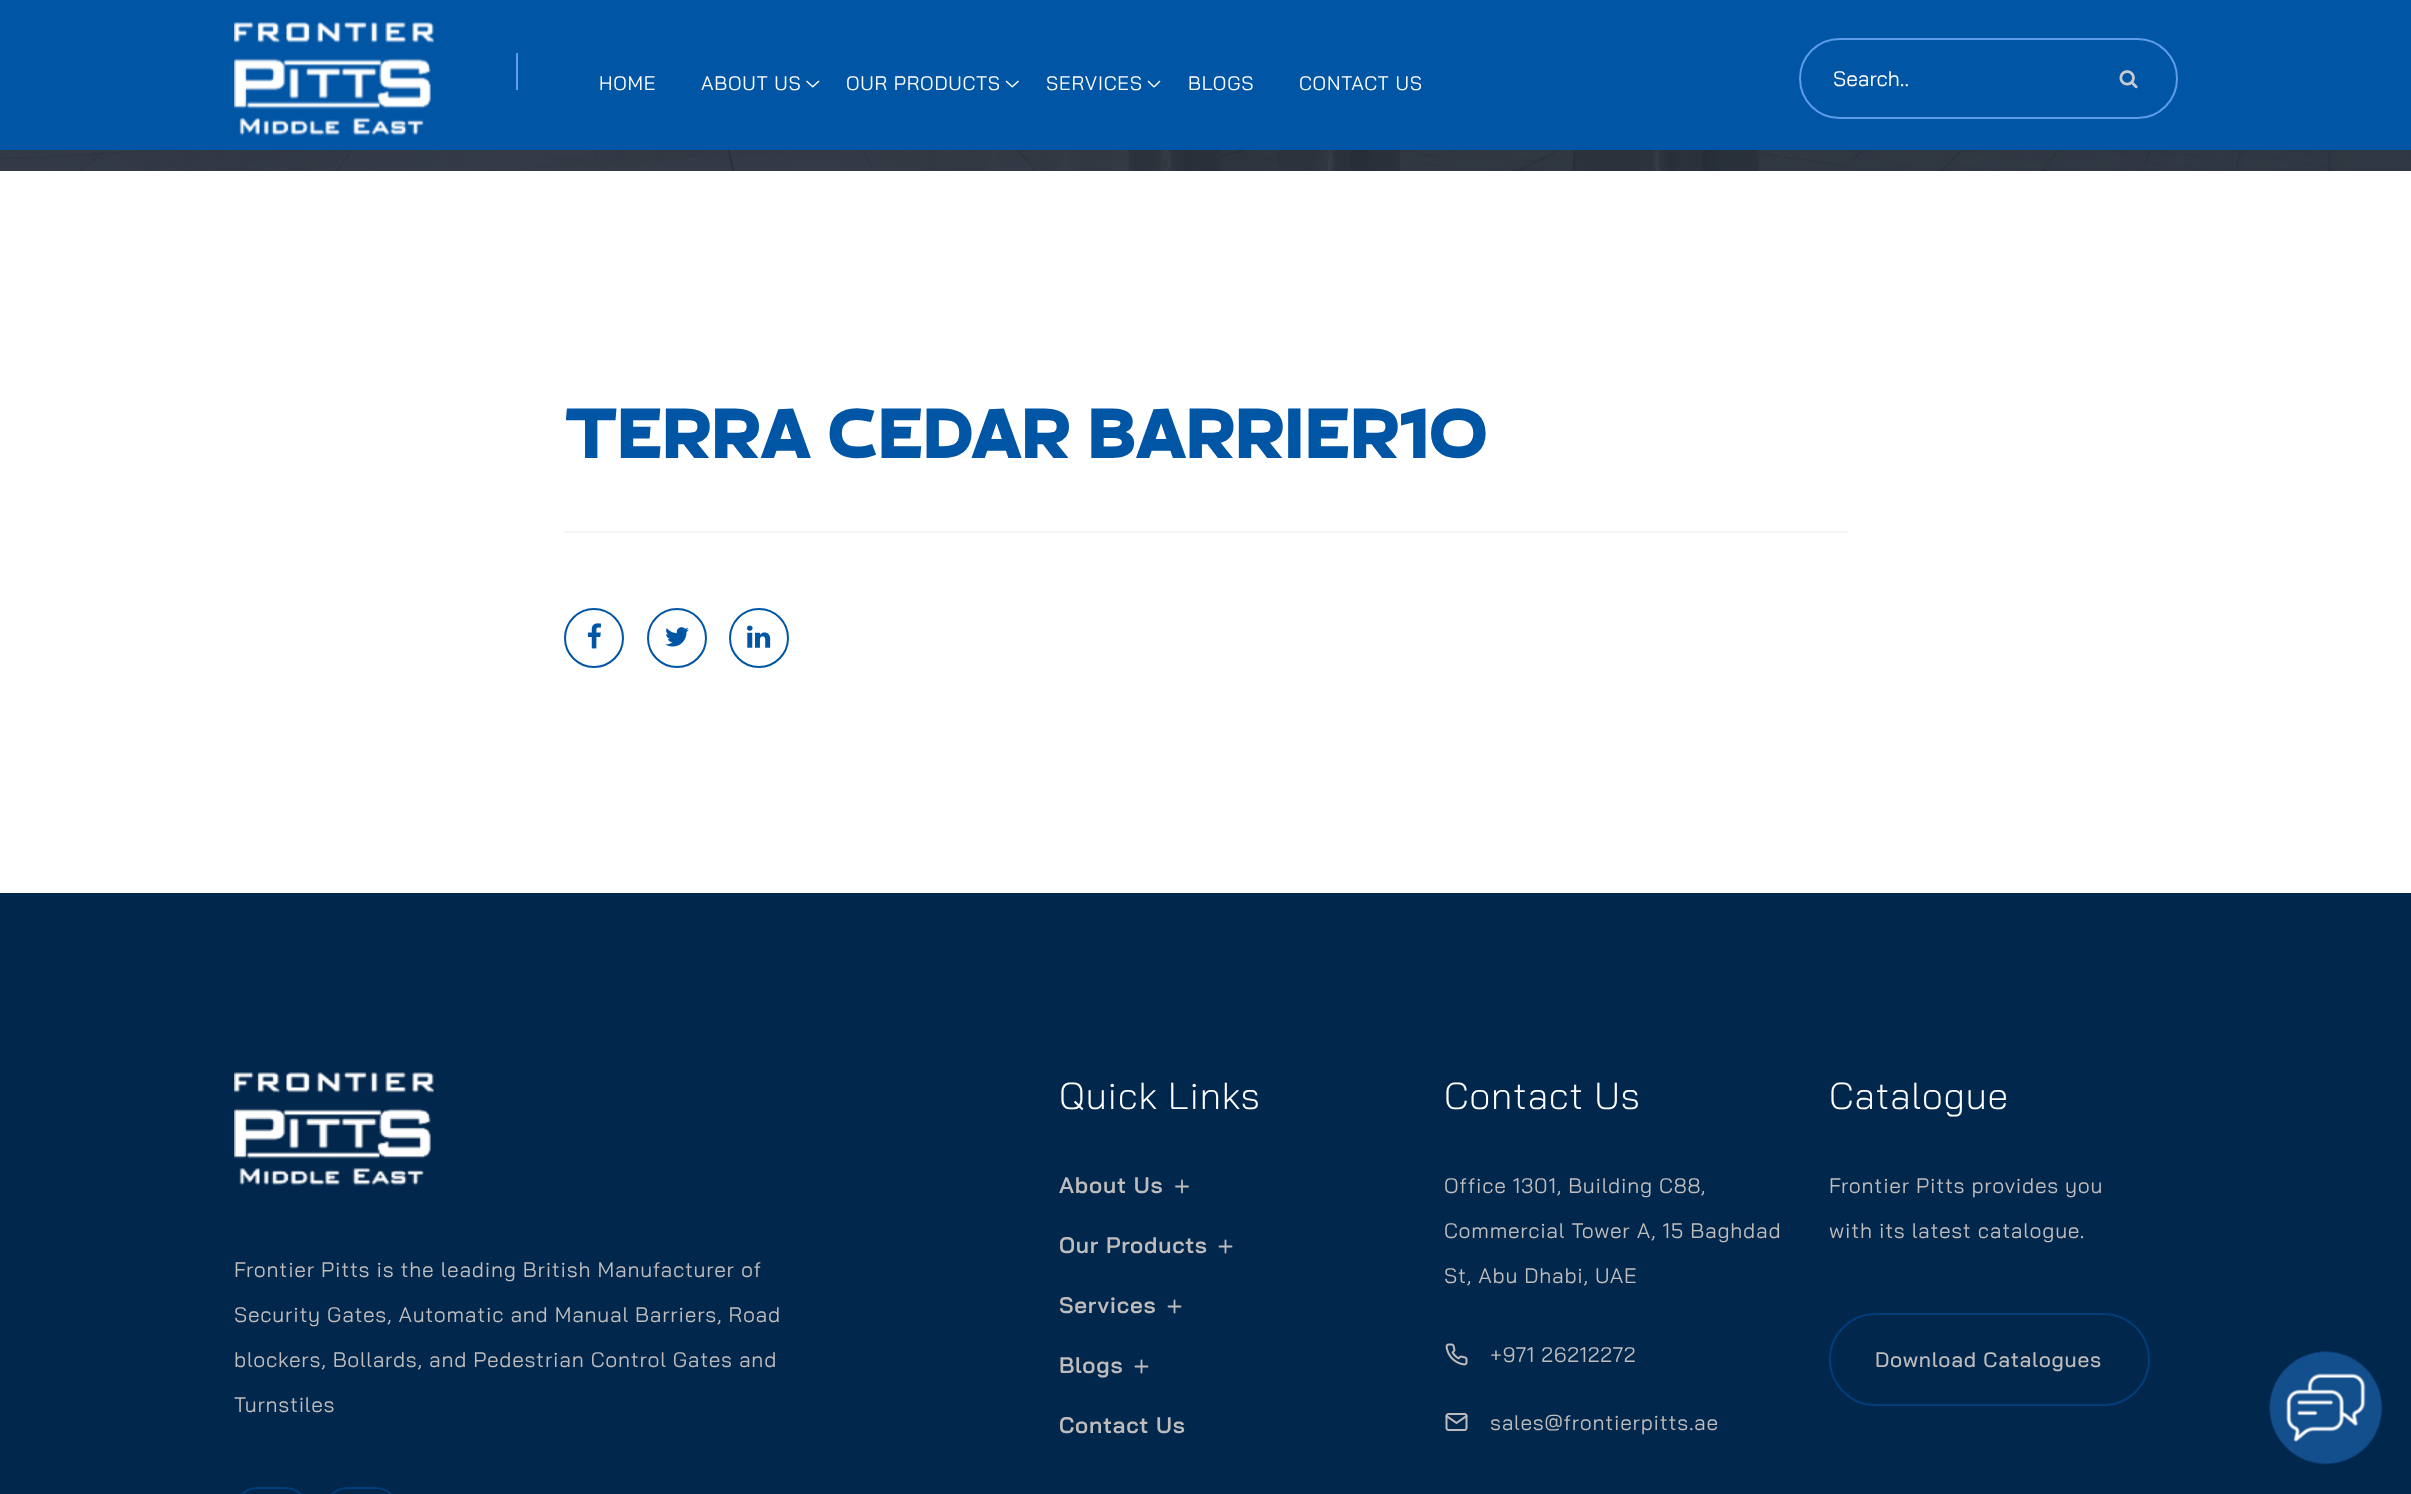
<!DOCTYPE html>
<meta charset="utf-8">
<style>body { margin: 0 } canvas { display: block }</style>
<canvas id="canvas" width="2411" height="1494"></canvas>
<script type="module">
  const canvas = document.getElementById("canvas");
  const ctx = canvas.getContext("2d");
  ctx.miterLimit = 4;
  ctx.fontKerning = "normal";
  async function loadImage(src) {
    const img = new Image();
    img.src = src;
    await img.decode();
    return img;
  }

  ctx.fillStyle = "#ffffff";
  ctx.fillRect(0, 0, 2411, 1494);
  ctx.fillStyle = "#0055a5";
  ctx.fillRect(0, 0, 2411, 150);
  ctx.drawImage(await loadImage("img1.png"), 234, 22, 200, 114);
  ctx.fillStyle = "#5c9ce9";
  ctx.fillRect(516, 53, 2, 37);
  ctx.letterSpacing = "0.75px";
  ctx.font = "19.5px Bai Jamjuree";
  ctx.fillStyle = "#ffffff";
  ctx.fillText("HOME", 599, 90);
  ctx.fillText("ABOUT US", 701, 90);
  ctx.beginPath();
  ctx.moveTo(806, 81.5);
  ctx.lineTo(807, 80.5);
  ctx.lineTo(813.5, 86.5);
  ctx.lineTo(812.5, 87.5);
  ctx.closePath();
  ctx.fill();
  ctx.beginPath();
  ctx.moveTo(818.5, 80.5);
  ctx.lineTo(819.5, 81.5);
  ctx.lineTo(813, 87.5);
  ctx.lineTo(812, 86.5);
  ctx.closePath();
  ctx.fill();
  ctx.fillText("OUR PRODUCTS", 846, 90);
  ctx.beginPath();
  ctx.moveTo(1005.5, 81.5);
  ctx.lineTo(1006.5, 80.5);
  ctx.lineTo(1013, 86.5);
  ctx.lineTo(1012, 87.5);
  ctx.closePath();
  ctx.fill();
  ctx.beginPath();
  ctx.moveTo(1018, 80.5);
  ctx.lineTo(1019, 81.5);
  ctx.lineTo(1012.5, 87.5);
  ctx.lineTo(1011.5, 86.5);
  ctx.closePath();
  ctx.fill();
  ctx.fillText("SERVICES", 1046, 90);
  ctx.beginPath();
  ctx.moveTo(1147.5, 81.5);
  ctx.lineTo(1148.5, 80.5);
  ctx.lineTo(1154.5, 86.5);
  ctx.lineTo(1153.5, 87.5);
  ctx.closePath();
  ctx.fill();
  ctx.beginPath();
  ctx.moveTo(1159.5, 80.5);
  ctx.lineTo(1160.5, 81.5);
  ctx.lineTo(1154.5, 87.5);
  ctx.lineTo(1153.5, 86.5);
  ctx.closePath();
  ctx.fill();
  ctx.fillText("BLOGS", 1188, 90);
  ctx.fillText("CONTACT US", 1299, 90);
  ctx.beginPath();
  ctx.roundRect(1800, 39, 377, 79, 39.5);
  ctx.strokeStyle = "#5c9ce9";
  ctx.lineWidth = 2;
  ctx.stroke();
  ctx.letterSpacing = "0px";
  ctx.font = "21px Bai Jamjuree";
  ctx.fillText("Search..", 1833, 86);
  ctx.drawImage(await loadImage("img2.png"), 2119, 70, 19, 19);
  ctx.drawImage(await loadImage("img3.png"), 0, 150, 2411, 21);
  ctx.fillStyle = "#f4f5f6";
  ctx.fillRect(564, 531, 1284, 2);
  ctx.font = "900 72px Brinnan";
  ctx.fillStyle = "#0055a5";
  ctx.fillText("TERRA CEDAR BARRIER10", 564, 458);
  ctx.beginPath();
  ctx.arc(594, 638, 29, 0, Math.PI * 2);
  ctx.strokeStyle = "#0055a5";
  ctx.stroke();
  ctx.drawImage(await loadImage("img4.png"), 587, 623, 14, 26);
  ctx.beginPath();
  ctx.arc(677, 638, 29, 0, Math.PI * 2);
  ctx.stroke();
  ctx.drawImage(await loadImage("img5.png"), 665, 627, 24, 20);
  ctx.beginPath();
  ctx.arc(759, 638, 29, 0, Math.PI * 2);
  ctx.stroke();
  ctx.drawImage(await loadImage("img6.png"), 747, 625, 24, 23);
  ctx.fillStyle = "#02274c";
  ctx.fillRect(0, 893, 2411, 601);
  ctx.drawImage(await loadImage("img7.png"), 234, 1072, 200, 114);
  ctx.letterSpacing = "0.75px";
  ctx.font = "21px Bai Jamjuree";
  ctx.fillStyle = "#bebcbc";
  ctx.fillText("Frontier Pitts is the leading British Manufacturer of", 234, 1277);
  ctx.fillText("Security Gates, Automatic and Manual Barriers, Road", 234, 1322);
  ctx.fillText("blockers, Bollards, and Pedestrian Control Gates and", 234, 1367);
  ctx.fillText("Turnstiles", 234, 1412);
  ctx.beginPath();
  ctx.roundRect(235, 1488, 73, 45, 36.5);
  ctx.strokeStyle = "#013d78";
  ctx.stroke();
  ctx.beginPath();
  ctx.roundRect(325, 1488, 73, 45, 36.5);
  ctx.stroke();
  ctx.font = "300 37.5px Bai Jamjuree";
  ctx.fillStyle = "#ffffff";
  ctx.fillText("Quick Links", 1059, 1109);
  ctx.font = "600 22.5px Bai Jamjuree";
  ctx.fillStyle = "#bebcbc";
  ctx.fillText("About Us", 1059, 1193);
  ctx.beginPath();
  ctx.moveTo(1182, 1180.5);
  ctx.lineTo(1182, 1192.5);
  ctx.moveTo(1176, 1186.5);
  ctx.lineTo(1188, 1186.5);
  ctx.strokeStyle = "#bebcbc";
  ctx.lineWidth = 1.8;
  ctx.lineCap = "round";
  ctx.lineJoin = "round";
  ctx.stroke();
  ctx.fillText("Our Products", 1059, 1253);
  ctx.beginPath();
  ctx.moveTo(1225.5, 1240.5);
  ctx.lineTo(1225.5, 1252.5);
  ctx.moveTo(1219.5, 1246.5);
  ctx.lineTo(1231.5, 1246.5);
  ctx.stroke();
  ctx.fillText("Services", 1059, 1313);
  ctx.beginPath();
  ctx.moveTo(1174.5, 1300.5);
  ctx.lineTo(1174.5, 1312.5);
  ctx.moveTo(1168.5, 1306.5);
  ctx.lineTo(1180.5, 1306.5);
  ctx.stroke();
  ctx.fillText("Blogs", 1059, 1373);
  ctx.beginPath();
  ctx.moveTo(1141.5, 1360.5);
  ctx.lineTo(1141.5, 1372.5);
  ctx.moveTo(1135.5, 1366.5);
  ctx.lineTo(1147.5, 1366.5);
  ctx.stroke();
  ctx.fillText("Contact Us", 1059, 1433);
  ctx.font = "300 37.5px Bai Jamjuree";
  ctx.fillStyle = "#ffffff";
  ctx.fillText("Contact Us", 1444, 1109);
  ctx.font = "21px Bai Jamjuree";
  ctx.fillStyle = "#bebcbc";
  ctx.fillText("Office 1301, Building C88,", 1444, 1193);
  ctx.fillText("Commercial Tower A, 15 Baghdad", 1444, 1238);
  ctx.fillText("St, Abu Dhabi, UAE", 1444, 1283);
  ctx.drawImage(await loadImage("img8.png"), 1445, 1343, 23, 23);
  ctx.fillText("+971 26212272", 1490, 1362);
  ctx.drawImage(await loadImage("img9.png"), 1445, 1413, 23, 18);
  ctx.fillText("sales@frontierpitts.ae", 1490, 1430);
  ctx.font = "300 37.5px Bai Jamjuree";
  ctx.fillStyle = "#ffffff";
  ctx.fillText("Catalogue", 1829, 1109);
  ctx.font = "21px Bai Jamjuree";
  ctx.fillStyle = "#bebcbc";
  ctx.fillText("Frontier Pitts provides you", 1829, 1193);
  ctx.fillText("with its latest catalogue.", 1829, 1238);
  ctx.beginPath();
  ctx.roundRect(1830, 1314, 319, 91, 45.5);
  ctx.strokeStyle = "#013d78";
  ctx.lineWidth = 2;
  ctx.lineJoin = "miter";
  ctx.stroke();
  ctx.font = "500 21px Bai Jamjuree";
  ctx.fillText("Download Catalogues", 1875, 1367);
  ctx.drawImage(await loadImage("img10.png"), 2269, 1351, 114, 114);
</script>
